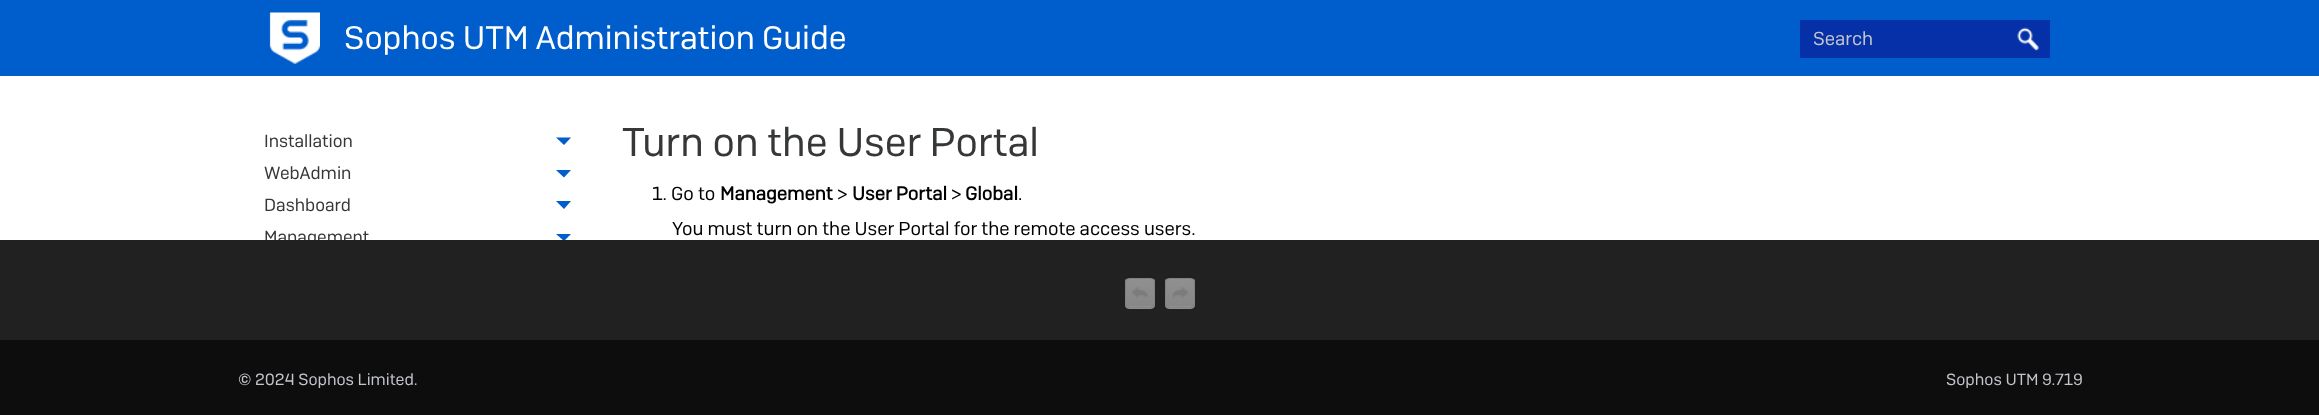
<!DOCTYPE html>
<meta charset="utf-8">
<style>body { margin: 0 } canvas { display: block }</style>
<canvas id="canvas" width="2319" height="415"></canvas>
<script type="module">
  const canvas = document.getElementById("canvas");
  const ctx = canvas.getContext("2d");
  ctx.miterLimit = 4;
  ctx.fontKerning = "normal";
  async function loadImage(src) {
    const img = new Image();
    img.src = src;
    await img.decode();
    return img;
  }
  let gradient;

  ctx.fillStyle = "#ffffff";
  ctx.fillRect(0, 0, 2319, 415);
  ctx.fillStyle = "#005dcc";
  ctx.fillRect(0, 0, 2319, 76);
  ctx.drawImage(await loadImage("img1.png"), 269, 12, 51, 52);
  ctx.font = "32.5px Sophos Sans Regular";
  ctx.fillStyle = "#ffffff";
  ctx.fillText("Sophos UTM Administration Guide", 344, 49);
  ctx.fillStyle = "#0530a8";
  ctx.fillRect(1800, 20, 250, 38);
  ctx.font = "18.75px Sophos Sans Regular";
  ctx.fillStyle = "#c2c5ca";
  ctx.fillText("Search", 1813, 45);
  ctx.drawImage(await loadImage("img2.png"), 2017, 27, 22, 24);
  ctx.font = "17.5px Sophos Sans Regular";
  ctx.fillStyle = "#363738";
  ctx.fillText("Installation", 264, 147);
  ctx.fillStyle = "#005dcc";
  ctx.beginPath();
  ctx.moveTo(556, 137.5);
  ctx.lineTo(571, 137.5);
  ctx.lineTo(564, 145);
  ctx.closePath();
  ctx.fill();
  ctx.fillStyle = "#363738";
  ctx.fillText("WebAdmin", 264, 179);
  ctx.fillStyle = "#005dcc";
  ctx.beginPath();
  ctx.moveTo(556, 170);
  ctx.lineTo(571, 170);
  ctx.lineTo(564, 177.5);
  ctx.closePath();
  ctx.fill();
  ctx.fillStyle = "#363738";
  ctx.fillText("Dashboard", 264, 211);
  ctx.fillStyle = "#005dcc";
  ctx.beginPath();
  ctx.moveTo(556, 201);
  ctx.lineTo(571, 201);
  ctx.lineTo(564, 209);
  ctx.closePath();
  ctx.fill();
  ctx.save();
  ctx.beginPath();
  ctx.rect(233, 76, 371, 164);
  ctx.clip();
  ctx.fillStyle = "#363738";
  ctx.fillText("Management", 264, 243);
  ctx.restore();
  ctx.beginPath();
  ctx.moveTo(556, 234);
  ctx.lineTo(571, 234);
  ctx.lineTo(564, 241);
  ctx.closePath();
  ctx.fill();
  ctx.font = "40px Sophos Sans Regular";
  ctx.fillStyle = "#363738";
  ctx.fillText("Turn on the User Portal", 622, 156);
  ctx.font = "18.75px Sophos Sans Regular";
  ctx.fillStyle = "#000000";
  ctx.fillText("1. Go to", 652, 200);
  ctx.font = "bold 18.75px Sophos Sans Regular";
  ctx.fillText("Management", 720, 200);
  ctx.font = "18.75px Sophos Sans Regular";
  ctx.fillText(">", 837, 200);
  ctx.font = "bold 18.75px Sophos Sans Regular";
  ctx.fillText("User Portal", 852, 200);
  ctx.font = "18.75px Sophos Sans Regular";
  ctx.fillText(">", 951, 200);
  ctx.font = "bold 18.75px Sophos Sans Regular";
  ctx.fillText("Global", 965, 200);
  ctx.font = "18.75px Sophos Sans Regular";
  ctx.fillText(".", 1018, 200);
  ctx.fillText("You must turn on the User Portal for the remote access users.", 672, 235);
  ctx.fillStyle = "#212121";
  ctx.fillRect(0, 240, 2319, 100);
  ctx.fillStyle = "#909090";
  ctx.beginPath();
  ctx.moveTo(1125, 304);
  ctx.bezierCurveTo(1125, 309, 1128, 309, 1132.5, 309);
  ctx.lineTo(1147.5, 309);
  ctx.bezierCurveTo(1152, 309, 1155, 309, 1155, 304);
  ctx.bezierCurveTo(1155, 306, 1153.5, 307.5, 1151, 307.5);
  ctx.lineTo(1129, 307.5);
  ctx.bezierCurveTo(1126.5, 307.5, 1125, 306, 1125, 304);
  ctx.closePath();
  ctx.fill();
  ctx.save();
  ctx.beginPath();
  ctx.roundRect(1125, 278, 30, 30, 4);
  ctx.clip();
  gradient = ctx.createLinearGradient(1140, 279, 1140, 306);
  gradient.addColorStop(0, "#909090");
  gradient.addColorStop(1, "#878787");
  ctx.fillStyle = gradient;
  ctx.fillRect(1125, 279, 30, 27);
  gradient = ctx.createLinearGradient(1140, 306, 1140, 334);
  gradient.addColorStop(0, "#909090");
  gradient.addColorStop(1, "#878787");
  ctx.fillStyle = gradient;
  ctx.fillRect(1125, 306, 30, 2);
  ctx.restore();
  ctx.beginPath();
  ctx.roundRect(1125.5, 278.5, 29, 29, 3.5);
  ctx.strokeStyle = "#818181";
  ctx.stroke();
  ctx.drawImage(await loadImage("img3.png"), 1132, 287, 16, 11);
  ctx.beginPath();
  ctx.moveTo(1165, 304);
  ctx.bezierCurveTo(1165, 309, 1168, 309, 1172.5, 309);
  ctx.lineTo(1187.5, 309);
  ctx.bezierCurveTo(1192, 309, 1195, 309, 1195, 304);
  ctx.bezierCurveTo(1195, 306, 1193.5, 307.5, 1191, 307.5);
  ctx.lineTo(1169, 307.5);
  ctx.bezierCurveTo(1166.5, 307.5, 1165, 306, 1165, 304);
  ctx.closePath();
  ctx.fill();
  ctx.save();
  ctx.beginPath();
  ctx.roundRect(1165, 278, 30, 30, 4);
  ctx.clip();
  gradient = ctx.createLinearGradient(1180, 279, 1180, 306);
  gradient.addColorStop(0, "#909090");
  gradient.addColorStop(1, "#878787");
  ctx.fillStyle = gradient;
  ctx.fillRect(1165, 279, 30, 27);
  gradient = ctx.createLinearGradient(1180, 306, 1180, 334);
  gradient.addColorStop(0, "#909090");
  gradient.addColorStop(1, "#878787");
  ctx.fillStyle = gradient;
  ctx.fillRect(1165, 306, 30, 2);
  ctx.restore();
  ctx.beginPath();
  ctx.roundRect(1165.5, 278.5, 29, 29, 3.5);
  ctx.stroke();
  ctx.drawImage(await loadImage("img4.png"), 1172, 287, 17, 11);
  ctx.fillStyle = "#0d0d0e";
  ctx.fillRect(0, 340, 2319, 75);
  ctx.font = "16.25px Sophos Sans Regular";
  ctx.fillStyle = "#c2c5ca";
  ctx.fillText("© 2024 Sophos Limited.", 238, 385);
  ctx.fillText("Sophos UTM 9.719", 1946, 385);
</script>
